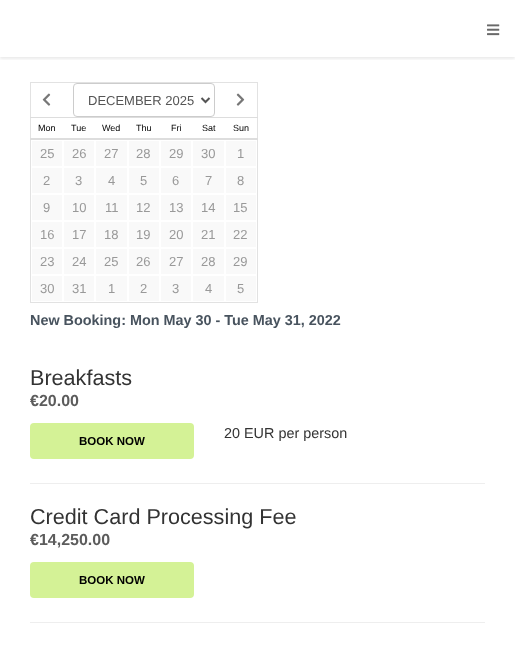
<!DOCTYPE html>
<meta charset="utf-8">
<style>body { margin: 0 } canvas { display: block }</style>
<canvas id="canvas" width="515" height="646"></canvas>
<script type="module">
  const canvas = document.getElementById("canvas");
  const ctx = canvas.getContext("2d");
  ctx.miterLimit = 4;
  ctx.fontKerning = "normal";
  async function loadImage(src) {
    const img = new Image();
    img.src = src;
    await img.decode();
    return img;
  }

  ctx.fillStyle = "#ffffff";
  ctx.fillRect(0, 0, 515, 646);
  ctx.save();
  ctx.beginPath();
  ctx.rect(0, 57, 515, 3);
  ctx.clip();
  ctx.fillStyle = "rgba(50, 50, 50, 0.1)";
  ctx.filter = "blur(1.5px)";
  ctx.beginPath();
  ctx.rect(0, 2, 515, 57);
  ctx.fill();
  ctx.filter = "none";
  ctx.restore();
  ctx.drawImage(await loadImage("img1.png"), 487, 24, 13, 12);
  ctx.fillStyle = "#e2e2e2";
  ctx.fillRect(30, 82, 228, 1);
  ctx.fillRect(257, 82, 1, 221);
  ctx.fillRect(30, 302, 228, 1);
  ctx.fillRect(30, 82, 1, 221);
  ctx.drawImage(await loadImage("img2.png"), 42, 93, 9, 13);
  ctx.beginPath();
  ctx.roundRect(73.5, 83.5, 141, 33, 3.5);
  ctx.strokeStyle = "#cccccc";
  ctx.stroke();
  ctx.beginPath();
  ctx.moveTo(201.5, 98);
  ctx.lineTo(205.5, 102);
  ctx.lineTo(209.5, 98);
  ctx.strokeStyle = "#555555";
  ctx.lineWidth = 2;
  ctx.stroke();
  ctx.font = "13px Liberation Sans";
  ctx.fillStyle = "#555555";
  ctx.fillText("DECEMBER 2025", 88, 105);
  ctx.drawImage(await loadImage("img3.png"), 236, 93, 9, 13);
  ctx.font = "9px Liberation Sans";
  ctx.fillStyle = "#000000";
  ctx.fillText("Mon", 38, 131);
  ctx.fillText("Tue", 71, 131);
  ctx.fillText("Wed", 102, 131);
  ctx.fillText("Thu", 136, 131);
  ctx.fillText("Fri", 171, 131);
  ctx.fillText("Sat", 202, 131);
  ctx.fillStyle = "#dddddd";
  ctx.fillRect(30, 117, 228, 1);
  ctx.fillRect(30, 138, 228, 2);
  ctx.fillStyle = "#000000";
  ctx.fillText("Sun", 233, 131);
  ctx.fillStyle = "#f9f9f9";
  ctx.fillRect(32, 141, 30, 25);
  ctx.font = "13px Liberation Sans";
  ctx.fillStyle = "#999999";
  ctx.fillText("25", 40, 158);
  ctx.fillStyle = "#f9f9f9";
  ctx.fillRect(64, 141, 30, 25);
  ctx.fillStyle = "#999999";
  ctx.fillText("26", 72, 158);
  ctx.fillStyle = "#f9f9f9";
  ctx.fillRect(96, 141, 31, 25);
  ctx.fillStyle = "#999999";
  ctx.fillText("27", 104, 158);
  ctx.fillStyle = "#f9f9f9";
  ctx.fillRect(129, 141, 30, 25);
  ctx.fillStyle = "#999999";
  ctx.fillText("28", 136, 158);
  ctx.fillStyle = "#f9f9f9";
  ctx.fillRect(161, 141, 30, 25);
  ctx.fillStyle = "#999999";
  ctx.fillText("29", 169, 158);
  ctx.fillStyle = "#f9f9f9";
  ctx.fillRect(193, 141, 31, 25);
  ctx.fillStyle = "#999999";
  ctx.fillText("30", 201, 158);
  ctx.fillStyle = "#f9f9f9";
  ctx.fillRect(226, 141, 30, 25);
  ctx.fillStyle = "#999999";
  ctx.fillText("1", 237, 158);
  ctx.fillStyle = "#f9f9f9";
  ctx.fillRect(32, 168, 30, 25);
  ctx.fillStyle = "#999999";
  ctx.fillText("2", 43, 185);
  ctx.fillStyle = "#f9f9f9";
  ctx.fillRect(64, 168, 30, 25);
  ctx.fillStyle = "#999999";
  ctx.fillText("3", 75, 185);
  ctx.fillStyle = "#f9f9f9";
  ctx.fillRect(96, 168, 31, 25);
  ctx.fillStyle = "#999999";
  ctx.fillText("4", 108, 185);
  ctx.fillStyle = "#f9f9f9";
  ctx.fillRect(129, 168, 30, 25);
  ctx.fillStyle = "#999999";
  ctx.fillText("5", 140, 185);
  ctx.fillStyle = "#f9f9f9";
  ctx.fillRect(161, 168, 30, 25);
  ctx.fillStyle = "#999999";
  ctx.fillText("6", 172, 185);
  ctx.fillStyle = "#f9f9f9";
  ctx.fillRect(193, 168, 31, 25);
  ctx.fillStyle = "#999999";
  ctx.fillText("7", 205, 185);
  ctx.fillStyle = "#f9f9f9";
  ctx.fillRect(226, 168, 30, 25);
  ctx.fillStyle = "#999999";
  ctx.fillText("8", 237, 185);
  ctx.fillStyle = "#f9f9f9";
  ctx.fillRect(32, 195, 30, 25);
  ctx.fillStyle = "#999999";
  ctx.fillText("9", 43, 212);
  ctx.fillStyle = "#f9f9f9";
  ctx.fillRect(64, 195, 30, 25);
  ctx.fillStyle = "#999999";
  ctx.fillText("10", 72, 212);
  ctx.fillStyle = "#f9f9f9";
  ctx.fillRect(96, 195, 31, 25);
  ctx.fillStyle = "#999999";
  ctx.fillText("11", 105, 212);
  ctx.fillStyle = "#f9f9f9";
  ctx.fillRect(129, 195, 30, 25);
  ctx.fillStyle = "#999999";
  ctx.fillText("12", 136, 212);
  ctx.fillStyle = "#f9f9f9";
  ctx.fillRect(161, 195, 30, 25);
  ctx.fillStyle = "#999999";
  ctx.fillText("13", 169, 212);
  ctx.fillStyle = "#f9f9f9";
  ctx.fillRect(193, 195, 31, 25);
  ctx.fillStyle = "#999999";
  ctx.fillText("14", 201, 212);
  ctx.fillStyle = "#f9f9f9";
  ctx.fillRect(226, 195, 30, 25);
  ctx.fillStyle = "#999999";
  ctx.fillText("15", 233, 212);
  ctx.fillStyle = "#f9f9f9";
  ctx.fillRect(32, 222, 30, 25);
  ctx.fillStyle = "#999999";
  ctx.fillText("16", 40, 239);
  ctx.fillStyle = "#f9f9f9";
  ctx.fillRect(64, 222, 30, 25);
  ctx.fillStyle = "#999999";
  ctx.fillText("17", 72, 239);
  ctx.fillStyle = "#f9f9f9";
  ctx.fillRect(96, 222, 31, 25);
  ctx.fillStyle = "#999999";
  ctx.fillText("18", 104, 239);
  ctx.fillStyle = "#f9f9f9";
  ctx.fillRect(129, 222, 30, 25);
  ctx.fillStyle = "#999999";
  ctx.fillText("19", 136, 239);
  ctx.fillStyle = "#f9f9f9";
  ctx.fillRect(161, 222, 30, 25);
  ctx.fillStyle = "#999999";
  ctx.fillText("20", 169, 239);
  ctx.fillStyle = "#f9f9f9";
  ctx.fillRect(193, 222, 31, 25);
  ctx.fillStyle = "#999999";
  ctx.fillText("21", 201, 239);
  ctx.fillStyle = "#f9f9f9";
  ctx.fillRect(226, 222, 30, 25);
  ctx.fillStyle = "#999999";
  ctx.fillText("22", 233, 239);
  ctx.fillStyle = "#f9f9f9";
  ctx.fillRect(32, 249, 30, 25);
  ctx.fillStyle = "#999999";
  ctx.fillText("23", 40, 266);
  ctx.fillStyle = "#f9f9f9";
  ctx.fillRect(64, 249, 30, 25);
  ctx.fillStyle = "#999999";
  ctx.fillText("24", 72, 266);
  ctx.fillStyle = "#f9f9f9";
  ctx.fillRect(96, 249, 31, 25);
  ctx.fillStyle = "#999999";
  ctx.fillText("25", 104, 266);
  ctx.fillStyle = "#f9f9f9";
  ctx.fillRect(129, 249, 30, 25);
  ctx.fillStyle = "#999999";
  ctx.fillText("26", 136, 266);
  ctx.fillStyle = "#f9f9f9";
  ctx.fillRect(161, 249, 30, 25);
  ctx.fillStyle = "#999999";
  ctx.fillText("27", 169, 266);
  ctx.fillStyle = "#f9f9f9";
  ctx.fillRect(193, 249, 31, 25);
  ctx.fillStyle = "#999999";
  ctx.fillText("28", 201, 266);
  ctx.fillStyle = "#f9f9f9";
  ctx.fillRect(226, 249, 30, 25);
  ctx.fillStyle = "#999999";
  ctx.fillText("29", 233, 266);
  ctx.fillStyle = "#f9f9f9";
  ctx.fillRect(32, 276, 30, 25);
  ctx.fillStyle = "#999999";
  ctx.fillText("30", 40, 293);
  ctx.fillStyle = "#f9f9f9";
  ctx.fillRect(64, 276, 30, 25);
  ctx.fillStyle = "#999999";
  ctx.fillText("31", 72, 293);
  ctx.fillStyle = "#f9f9f9";
  ctx.fillRect(96, 276, 31, 25);
  ctx.fillStyle = "#999999";
  ctx.fillText("1", 108, 293);
  ctx.fillStyle = "#f9f9f9";
  ctx.fillRect(129, 276, 30, 25);
  ctx.fillStyle = "#999999";
  ctx.fillText("2", 140, 293);
  ctx.fillStyle = "#f9f9f9";
  ctx.fillRect(161, 276, 30, 25);
  ctx.fillStyle = "#999999";
  ctx.fillText("3", 172, 293);
  ctx.fillStyle = "#f9f9f9";
  ctx.fillRect(193, 276, 31, 25);
  ctx.fillStyle = "#999999";
  ctx.fillText("4", 205, 293);
  ctx.fillStyle = "#f9f9f9";
  ctx.fillRect(226, 276, 30, 25);
  ctx.fillStyle = "#999999";
  ctx.fillText("5", 237, 293);
  ctx.font = "bold 14.4px Liberation Sans";
  ctx.fillStyle = "#48535e";
  ctx.fillText("New Booking: Mon May 30 - Tue May 31, 2022", 30, 325);
  ctx.fillStyle = "#eeeeee";
  ctx.fillRect(30, 483, 455, 1);
  ctx.font = "21.6px Liberation Sans";
  ctx.fillStyle = "#333333";
  ctx.fillText("Breakfasts", 30, 385);
  ctx.font = "bold 16px Liberation Sans";
  ctx.fillStyle = "#5c5c5c";
  ctx.fillText("€20.00", 30, 406);
  ctx.fillStyle = "#d4f296";
  ctx.beginPath();
  ctx.roundRect(30, 423, 164, 36, 4);
  ctx.fill();
  ctx.font = "bold 11.5px Liberation Sans";
  ctx.fillStyle = "#000000";
  ctx.fillText("BOOK NOW", 79, 445);
  ctx.font = "14.4px Liberation Sans";
  ctx.fillStyle = "#333333";
  ctx.fillText("20 EUR per person", 224, 438);
  ctx.fillStyle = "#eeeeee";
  ctx.fillRect(30, 622, 455, 1);
  ctx.font = "21.6px Liberation Sans";
  ctx.fillStyle = "#333333";
  ctx.fillText("Credit Card Processing Fee", 30, 524);
  ctx.font = "bold 16px Liberation Sans";
  ctx.fillStyle = "#5c5c5c";
  ctx.fillText("€14,250.00", 30, 545);
  ctx.fillStyle = "#d4f296";
  ctx.beginPath();
  ctx.roundRect(30, 562, 164, 36, 4);
  ctx.fill();
  ctx.font = "bold 11.5px Liberation Sans";
  ctx.fillStyle = "#000000";
  ctx.fillText("BOOK NOW", 79, 584);
</script>
